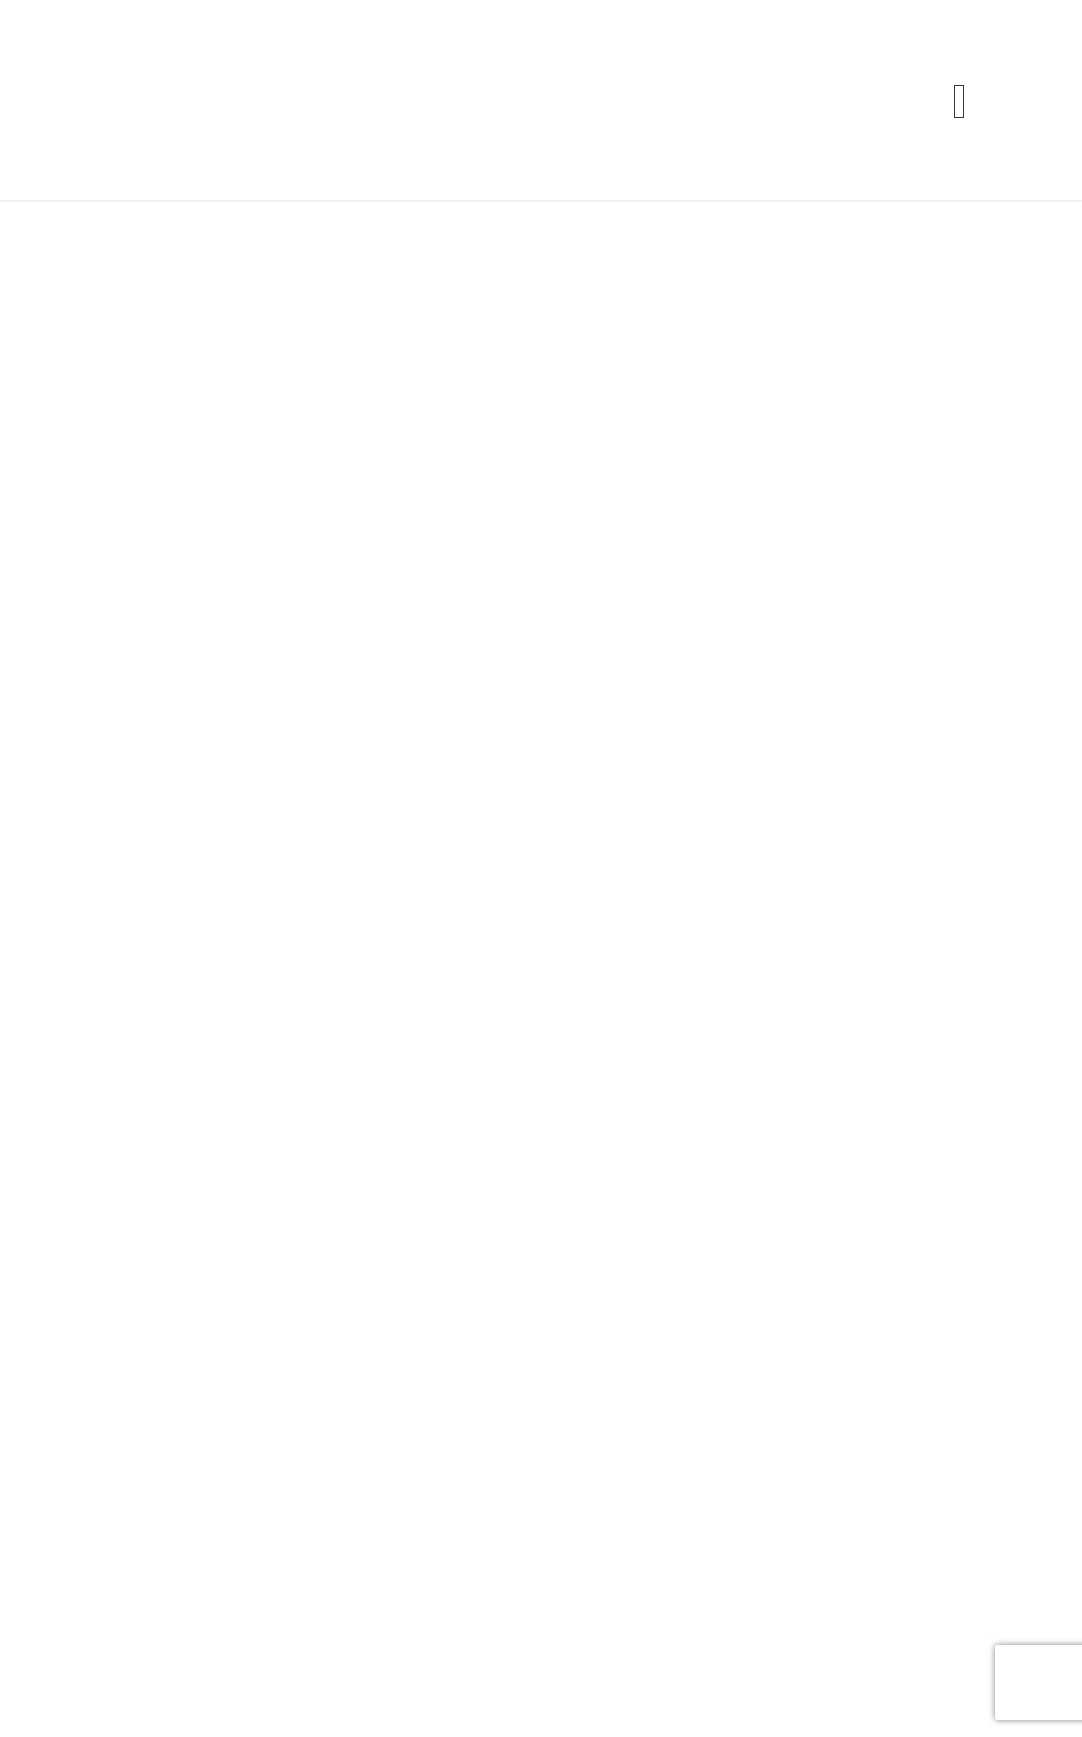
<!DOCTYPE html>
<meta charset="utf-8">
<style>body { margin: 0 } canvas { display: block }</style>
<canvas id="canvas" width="1082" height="1737"></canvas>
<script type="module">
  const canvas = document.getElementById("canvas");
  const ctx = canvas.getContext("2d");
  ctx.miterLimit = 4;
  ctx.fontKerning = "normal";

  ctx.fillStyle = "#ffffff";
  ctx.fillRect(0, 0, 1082, 1737);
  ctx.save();
  ctx.beginPath();
  ctx.rect(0, 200, 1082, 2);
  ctx.clip();
  ctx.fillStyle = "rgba(24, 19, 36, 0.1)";
  ctx.filter = "blur(1px)";
  ctx.beginPath();
  ctx.rect(0, 1, 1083, 200);
  ctx.fill();
  ctx.filter = "none";
  ctx.restore();
  ctx.strokeStyle = "#353535";
  ctx.strokeRect(954.5, 85.5, 9, 32);
  ctx.save();
  ctx.beginPath();
  ctx.moveTo(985, 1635);
  ctx.lineTo(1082, 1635);
  ctx.lineTo(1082, 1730);
  ctx.lineTo(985, 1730);
  ctx.closePath();
  ctx.moveTo(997.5, 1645);
  ctx.lineTo(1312.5, 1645);
  ctx.bezierCurveTo(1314, 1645, 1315, 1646, 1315, 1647.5);
  ctx.lineTo(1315, 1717.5);
  ctx.bezierCurveTo(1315, 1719, 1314, 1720, 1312.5, 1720);
  ctx.lineTo(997.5, 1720);
  ctx.bezierCurveTo(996, 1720, 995, 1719, 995, 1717.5);
  ctx.lineTo(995, 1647.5);
  ctx.bezierCurveTo(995, 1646, 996, 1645, 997.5, 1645);
  ctx.closePath();
  ctx.clip("evenodd");
  ctx.fillStyle = "#808080";
  ctx.filter = "blur(3px)";
  ctx.beginPath();
  ctx.roundRect(995, 1645, 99, 75, 2.5);
  ctx.fill();
  ctx.filter = "none";
  ctx.restore();
</script>
